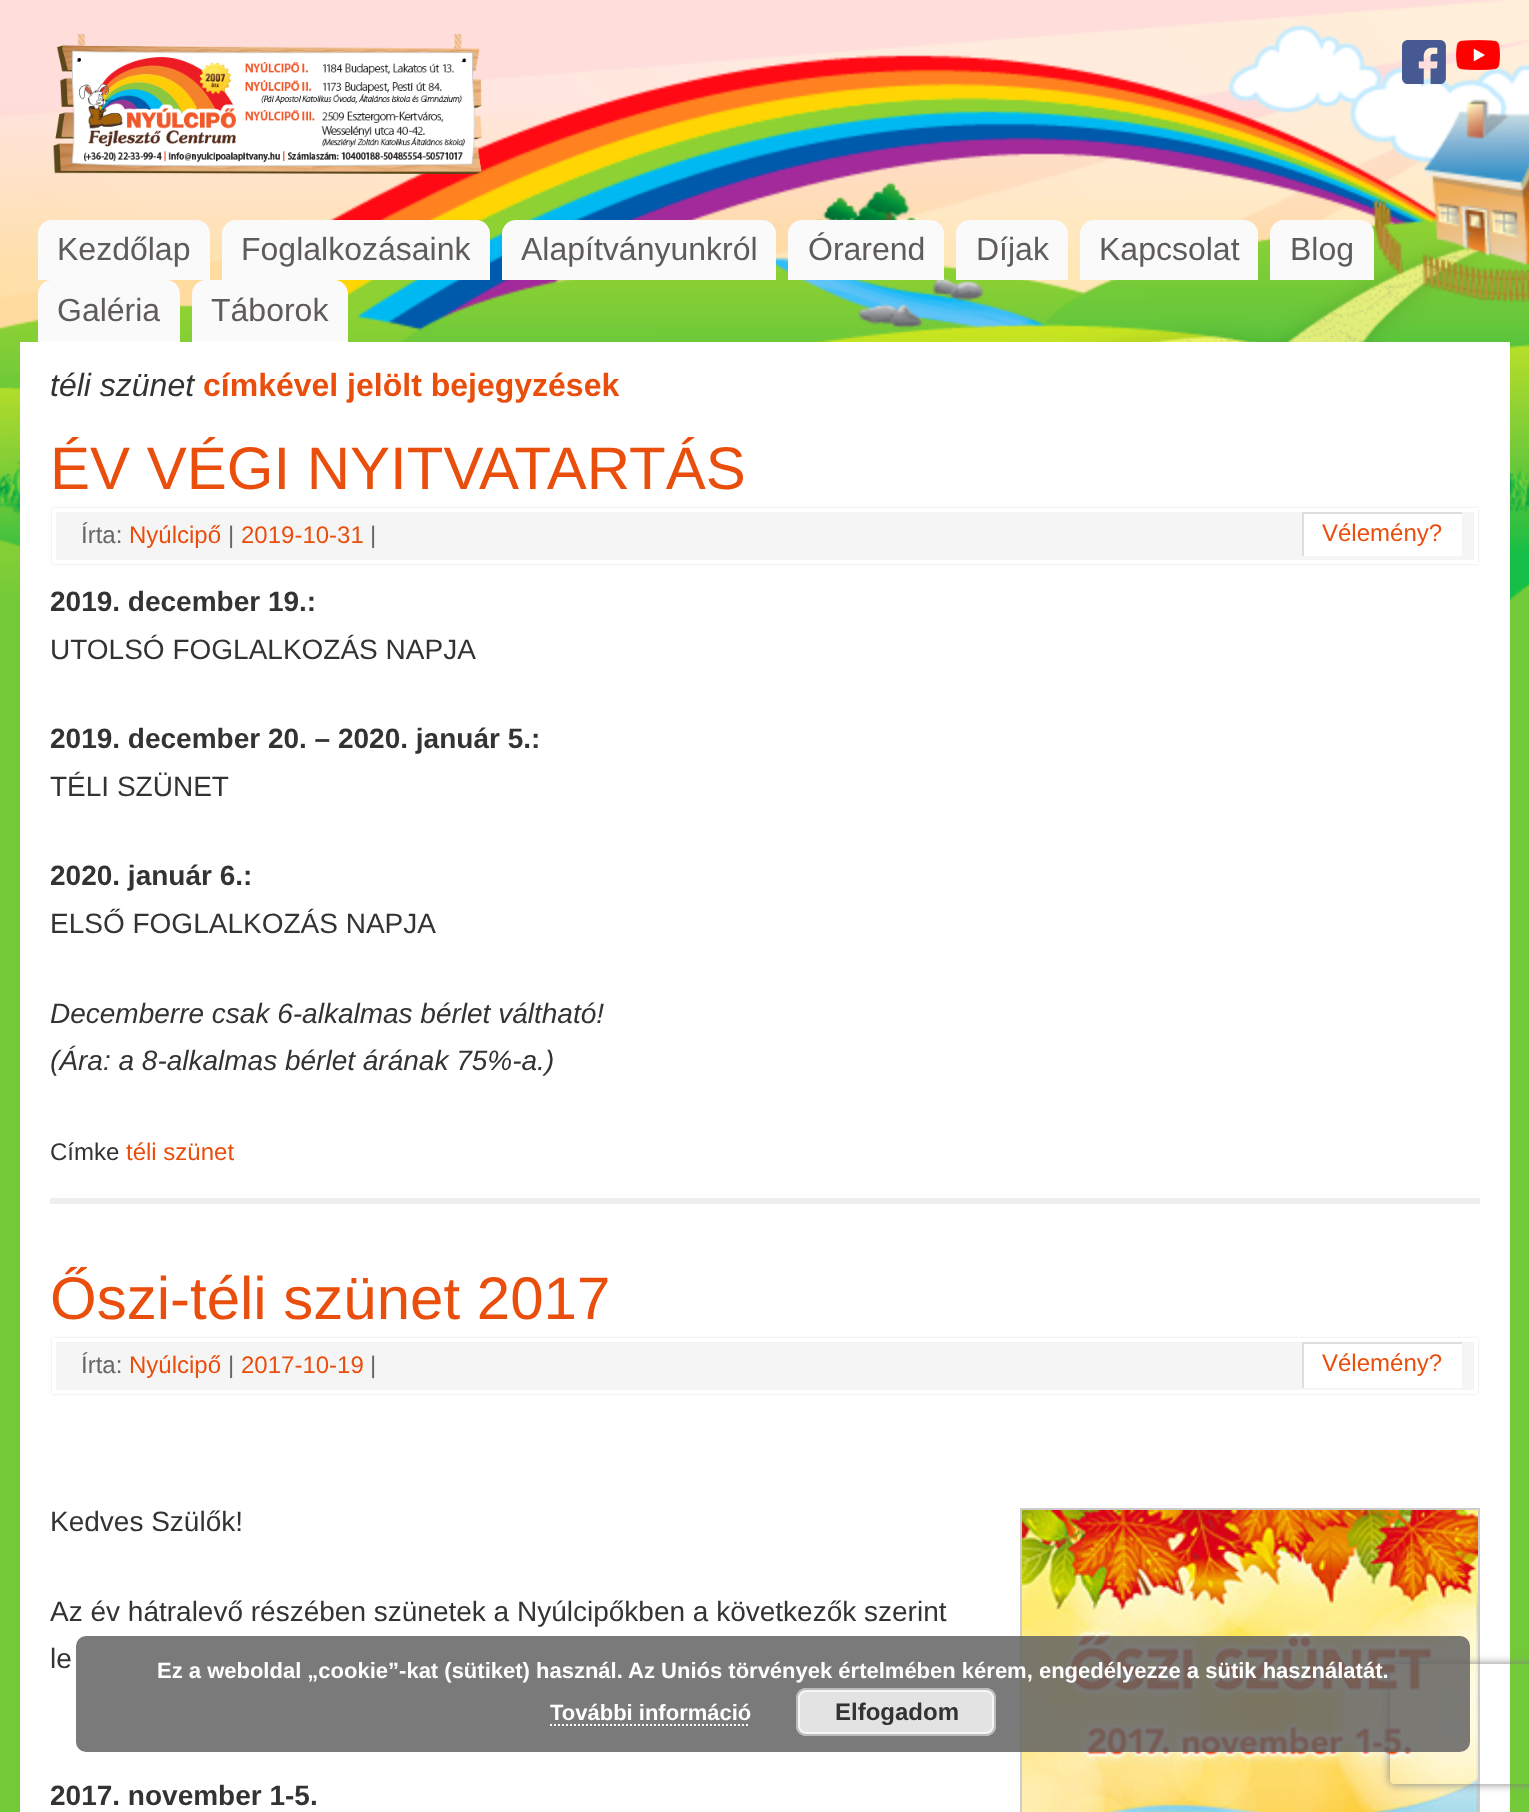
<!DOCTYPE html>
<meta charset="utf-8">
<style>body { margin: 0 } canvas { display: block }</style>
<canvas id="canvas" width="1529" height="1812"></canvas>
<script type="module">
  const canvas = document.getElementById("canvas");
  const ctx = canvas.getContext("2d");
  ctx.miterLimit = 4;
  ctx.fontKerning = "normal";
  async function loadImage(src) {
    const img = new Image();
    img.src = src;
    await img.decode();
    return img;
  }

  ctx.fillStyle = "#73ca38";
  ctx.fillRect(0, 0, 1529, 1812);
  ctx.drawImage(await loadImage("img1.png"), 0, 0, 1529, 600);
  ctx.drawImage(await loadImage("img2.png"), 53, 34, 429, 140);
  ctx.drawImage(await loadImage("img3.png"), 1402, 40, 44, 44);
  ctx.drawImage(await loadImage("img4.png"), 1456, 40, 44, 30);
  ctx.fillStyle = "#fafafa";
  ctx.beginPath();
  ctx.roundRect(38, 220, 172, 60, [14, 14, 0, 0]);
  ctx.fill();
  ctx.font = "32px Liberation Sans";
  ctx.fillStyle = "#5f5b5b";
  ctx.fillText("Kezdőlap", 57, 260);
  ctx.fillStyle = "#fafafa";
  ctx.beginPath();
  ctx.roundRect(222, 220, 268, 60, [14, 14, 0, 0]);
  ctx.fill();
  ctx.fillStyle = "#5f5b5b";
  ctx.fillText("Foglalkozásaink", 241, 260);
  ctx.fillStyle = "#fafafa";
  ctx.beginPath();
  ctx.roundRect(502, 220, 274, 60, [14, 14, 0, 0]);
  ctx.fill();
  ctx.fillStyle = "#5f5b5b";
  ctx.fillText("Alapítványunkról", 521, 260);
  ctx.fillStyle = "#fafafa";
  ctx.beginPath();
  ctx.roundRect(788, 220, 156, 60, [14, 14, 0, 0]);
  ctx.fill();
  ctx.fillStyle = "#5f5b5b";
  ctx.fillText("Órarend", 808, 260);
  ctx.fillStyle = "#fafafa";
  ctx.beginPath();
  ctx.roundRect(956, 220, 112, 60, [14, 14, 0, 0]);
  ctx.fill();
  ctx.fillStyle = "#5f5b5b";
  ctx.fillText("Díjak", 976, 260);
  ctx.fillStyle = "#fafafa";
  ctx.beginPath();
  ctx.roundRect(1080, 220, 178, 60, [14, 14, 0, 0]);
  ctx.fill();
  ctx.fillStyle = "#5f5b5b";
  ctx.fillText("Kapcsolat", 1099, 260);
  ctx.fillStyle = "#fafafa";
  ctx.beginPath();
  ctx.roundRect(1270, 220, 104, 60, [14, 14, 0, 0]);
  ctx.fill();
  ctx.fillStyle = "#5f5b5b";
  ctx.fillText("Blog", 1290, 260);
  ctx.fillStyle = "#fafafa";
  ctx.beginPath();
  ctx.roundRect(38, 280, 142, 62, [14, 14, 0, 0]);
  ctx.fill();
  ctx.fillStyle = "#5f5b5b";
  ctx.fillText("Galéria", 57, 321);
  ctx.fillStyle = "#fafafa";
  ctx.beginPath();
  ctx.roundRect(192, 280, 156, 62, [14, 14, 0, 0]);
  ctx.fill();
  ctx.fillStyle = "#5f5b5b";
  ctx.fillText("Táborok", 211, 321);
  ctx.fillStyle = "#ffffff";
  ctx.fillRect(20, 342, 1490, 1470);
  ctx.font = "italic 32px Liberation Sans";
  ctx.fillStyle = "#333333";
  ctx.fillText("téli szünet", 50, 396);
  ctx.font = "bold 32px Liberation Sans";
  ctx.fillStyle = "#e94e0d";
  ctx.fillText("címkével jelölt bejegyzések", 203, 396);
  ctx.fillStyle = "#eeeeee";
  ctx.fillRect(50, 1198, 1430, 6);
  ctx.font = "60px Liberation Sans";
  ctx.fillStyle = "#e94e0d";
  ctx.fillText("ÉV VÉGI NYITVATARTÁS", 50, 489);
  ctx.fillStyle = "#dddddd";
  ctx.filter = "blur(1px)";
  ctx.beginPath();
  ctx.rect(52, 508, 1426, 56);
  ctx.fill();
  ctx.filter = "none";
  ctx.fillStyle = "#f5f5f5";
  ctx.beginPath();
  ctx.rect(54, 510, 1422, 52);
  ctx.fill();
  ctx.strokeStyle = "#ffffff";
  ctx.lineWidth = 4;
  ctx.stroke();
  ctx.font = "24px Liberation Sans";
  ctx.fillStyle = "#666666";
  ctx.fillText("Írta:", 81, 543);
  ctx.fillStyle = "#e94e0d";
  ctx.fillText("Nyúlcipő", 129, 543);
  ctx.fillStyle = "#666666";
  ctx.fillText("|", 228, 543);
  ctx.fillStyle = "#e94e0d";
  ctx.fillText("2019-10-31", 241, 543);
  ctx.fillStyle = "#666666";
  ctx.fillText("|", 370, 543);
  ctx.fillStyle = "#ffffff";
  ctx.fillRect(1304, 514, 158, 42);
  ctx.save();
  ctx.beginPath();
  ctx.rect(1302, 512, 160, 44);
  ctx.clip();
  ctx.fillStyle = "#dddddd";
  ctx.beginPath();
  ctx.moveTo(1104, 314);
  ctx.lineTo(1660, 314);
  ctx.lineTo(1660, 754);
  ctx.lineTo(1104, 754);
  ctx.closePath();
  ctx.moveTo(1304, 514);
  ctx.lineTo(1464, 514);
  ctx.lineTo(1464, 558);
  ctx.lineTo(1304, 558);
  ctx.closePath();
  ctx.fill("evenodd");
  ctx.restore();
  ctx.fillStyle = "#e94e0d";
  ctx.fillText("Vélemény?", 1322, 541);
  ctx.font = "bold 28px Liberation Sans";
  ctx.fillStyle = "#333333";
  ctx.fillText("2019. december 19.:", 50, 611);
  ctx.font = "28px Liberation Sans";
  ctx.fillText("UTOLSÓ FOGLALKOZÁS NAPJA", 50, 659);
  ctx.font = "bold 28px Liberation Sans";
  ctx.fillText("2019. december 20. – 2020. január 5.:", 50, 748);
  ctx.font = "28px Liberation Sans";
  ctx.fillText("TÉLI SZÜNET", 50, 796);
  ctx.font = "bold 28px Liberation Sans";
  ctx.fillText("2020. január 6.:", 50, 885);
  ctx.font = "28px Liberation Sans";
  ctx.fillText("ELSŐ FOGLALKOZÁS NAPJA", 50, 933);
  ctx.font = "italic 28px Liberation Sans";
  ctx.fillText("Decemberre csak 6-alkalmas bérlet váltható!", 50, 1023);
  ctx.fillText("(Ára: a 8-alkalmas bérlet árának 75%-a.)", 50, 1070);
  ctx.font = "24px Liberation Sans";
  ctx.fillText("Címke", 50, 1160);
  ctx.fillStyle = "#e94e0d";
  ctx.fillText("téli szünet", 126, 1160);
  ctx.font = "60px Liberation Sans";
  ctx.fillText("Őszi-téli szünet 2017", 50, 1319);
  ctx.fillStyle = "#dddddd";
  ctx.filter = "blur(1px)";
  ctx.beginPath();
  ctx.rect(52, 1338, 1426, 56);
  ctx.fill();
  ctx.filter = "none";
  ctx.fillStyle = "#f5f5f5";
  ctx.beginPath();
  ctx.rect(54, 1340, 1422, 52);
  ctx.fill();
  ctx.stroke();
  ctx.font = "24px Liberation Sans";
  ctx.fillStyle = "#666666";
  ctx.fillText("Írta:", 81, 1373);
  ctx.fillStyle = "#e94e0d";
  ctx.fillText("Nyúlcipő", 129, 1373);
  ctx.fillStyle = "#666666";
  ctx.fillText("|", 228, 1373);
  ctx.fillStyle = "#e94e0d";
  ctx.fillText("2017-10-19", 241, 1373);
  ctx.fillStyle = "#666666";
  ctx.fillText("|", 370, 1373);
  ctx.fillStyle = "#ffffff";
  ctx.fillRect(1304, 1344, 158, 44);
  ctx.save();
  ctx.beginPath();
  ctx.rect(1302, 1342, 160, 46);
  ctx.clip();
  ctx.fillStyle = "#dddddd";
  ctx.beginPath();
  ctx.moveTo(1104, 1144);
  ctx.lineTo(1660, 1144);
  ctx.lineTo(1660, 1586);
  ctx.lineTo(1104, 1586);
  ctx.closePath();
  ctx.moveTo(1304, 1344);
  ctx.lineTo(1464, 1344);
  ctx.lineTo(1464, 1390);
  ctx.lineTo(1304, 1390);
  ctx.closePath();
  ctx.fill("evenodd");
  ctx.restore();
  ctx.fillStyle = "#e94e0d";
  ctx.fillText("Vélemény?", 1322, 1371);
  ctx.font = "28px Liberation Sans";
  ctx.fillStyle = "#333333";
  ctx.fillText("Kedves Szülők!", 50, 1531);
  ctx.strokeStyle = "#cccccc";
  ctx.lineWidth = 2;
  ctx.strokeRect(1021, 1509, 458, 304);
  ctx.drawImage(await loadImage("img5.png"), 1022, 1510, 456, 302);
  ctx.fillText("Az év hátralevő részében szünetek a Nyúlcipőkben a következők szerint", 50, 1621);
  ctx.fillText("le", 50, 1668);
  ctx.font = "bold 28px Liberation Sans";
  ctx.fillText("2017. november 1-5.", 50, 1805);
  ctx.save();
  ctx.beginPath();
  ctx.moveTo(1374, 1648);
  ctx.lineTo(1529, 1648);
  ctx.lineTo(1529, 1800);
  ctx.lineTo(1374, 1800);
  ctx.closePath();
  ctx.moveTo(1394, 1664);
  ctx.lineTo(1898, 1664);
  ctx.bezierCurveTo(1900, 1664, 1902, 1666, 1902, 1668);
  ctx.lineTo(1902, 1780);
  ctx.bezierCurveTo(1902, 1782, 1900, 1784, 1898, 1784);
  ctx.lineTo(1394, 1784);
  ctx.bezierCurveTo(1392, 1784, 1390, 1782, 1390, 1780);
  ctx.lineTo(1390, 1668);
  ctx.bezierCurveTo(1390, 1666, 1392, 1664, 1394, 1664);
  ctx.closePath();
  ctx.clip("evenodd");
  ctx.fillStyle = "#808080";
  ctx.filter = "blur(5px)";
  ctx.beginPath();
  ctx.roundRect(1390, 1664, 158, 120, 4);
  ctx.fill();
  ctx.filter = "none";
  ctx.restore();
  ctx.fillStyle = "rgba(99, 99, 99, 0.85)";
  ctx.beginPath();
  ctx.roundRect(76, 1636, 1394, 116, 10);
  ctx.fill();
  ctx.font = "bold 22px Liberation Sans";
  ctx.fillStyle = "#ffffff";
  ctx.fillText("Ez a weboldal „cookie”-kat (sütiket) használ. Az Uniós törvények értelmében kérem, engedélyezze a sütik használatát.", 157, 1678);
  ctx.fillText("További információ", 550, 1720);
  ctx.beginPath();
  ctx.moveTo(550, 1725);
  ctx.lineTo(750, 1725);
  ctx.strokeStyle = "#ffffff";
  ctx.setLineDash([2, 2]);
  ctx.stroke();
  ctx.fillStyle = "#e3e3e3";
  ctx.beginPath();
  ctx.roundRect(796, 1688, 200, 48, 10);
  ctx.fill();
  ctx.beginPath();
  ctx.roundRect(799, 1691, 194, 42, 7);
  ctx.strokeStyle = "#f6f6f6";
  ctx.setLineDash([]);
  ctx.stroke();
  ctx.beginPath();
  ctx.roundRect(797, 1689, 198, 46, 9);
  ctx.strokeStyle = "#bbbbbb";
  ctx.stroke();
  ctx.font = "bold 24px Liberation Sans";
  ctx.fillStyle = "#333333";
  ctx.fillText("Elfogadom", 835, 1720);
</script>
